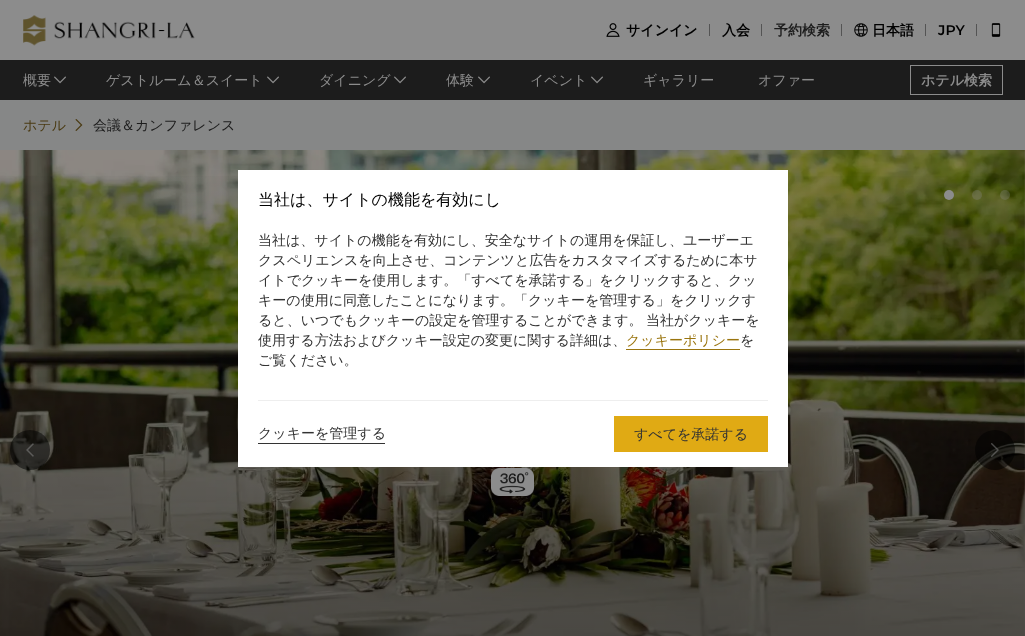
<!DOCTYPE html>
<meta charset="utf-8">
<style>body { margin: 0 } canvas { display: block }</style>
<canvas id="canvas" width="1025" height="636"></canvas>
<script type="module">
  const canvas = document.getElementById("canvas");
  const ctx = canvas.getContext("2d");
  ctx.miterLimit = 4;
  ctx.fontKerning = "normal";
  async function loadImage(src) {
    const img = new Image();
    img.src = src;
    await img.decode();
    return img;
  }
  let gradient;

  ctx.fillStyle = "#8c8c8c";
  ctx.fillRect(0, 0, 1025, 636);
  ctx.drawImage(await loadImage("img1.png"), 23, 15, 172, 31);
  ctx.drawImage(await loadImage("img2.png"), 606, 23, 14, 14);
  ctx.font = "bold 14px WenQuanYi Zen Hei";
  ctx.fillStyle = "#000000";
  ctx.fillText("サインイン", 626, 35);
  ctx.fillStyle = "#545454";
  ctx.fillRect(709, 24, 1, 12);
  ctx.fillStyle = "#000000";
  ctx.fillText("入会", 722, 35);
  ctx.fillStyle = "#545454";
  ctx.fillRect(761, 24, 1, 12);
  ctx.fillStyle = "#1c1c1c";
  ctx.fillText("予約検索", 774, 35);
  ctx.fillStyle = "#545454";
  ctx.fillRect(841, 24, 1, 12);
  ctx.drawImage(await loadImage("img3.png"), 854, 23, 14, 14);
  ctx.fillStyle = "#000000";
  ctx.fillText("日本語", 872, 35);
  ctx.fillStyle = "#545454";
  ctx.fillRect(925, 24, 1, 12);
  ctx.font = "600 14px Montserrat";
  ctx.fillStyle = "#000000";
  ctx.fillText("JPY", 938, 35);
  ctx.fillStyle = "#545454";
  ctx.fillRect(976, 24, 1, 12);
  ctx.drawImage(await loadImage("img4.png"), 991, 23, 10, 14);
  ctx.fillStyle = "#1c1c1c";
  ctx.fillRect(0, 60, 1025, 40);
  ctx.font = "500 14px WenQuanYi Zen Hei";
  ctx.fillStyle = "#8c8c8c";
  ctx.fillText("概要", 23, 85);
  ctx.drawImage(await loadImage("img5.png"), 54, 76, 12, 8);
  ctx.fillText("ゲストルーム＆スイート", 106, 85);
  ctx.drawImage(await loadImage("img5.png"), 267, 76, 12, 8);
  ctx.fillText("ダイニング", 319, 85);
  ctx.drawImage(await loadImage("img5.png"), 394, 76, 12, 8);
  ctx.fillText("体験", 446, 85);
  ctx.drawImage(await loadImage("img5.png"), 478, 76, 12, 8);
  ctx.fillText("イベント", 530, 85);
  ctx.drawImage(await loadImage("img5.png"), 591, 76, 12, 8);
  ctx.fillText("ギャラリー", 643, 85);
  ctx.fillText("オファー", 758, 85);
  ctx.strokeStyle = "#8c8c8c";
  ctx.strokeRect(910.5, 65.5, 92, 29);
  ctx.font = "bold 14px WenQuanYi Zen Hei";
  ctx.fillText("ホテル検索", 921, 85);
  ctx.fillStyle = "#868787";
  ctx.fillRect(0, 100, 1025, 50);
  ctx.font = "500 14px WenQuanYi Zen Hei";
  ctx.fillStyle = "#4a3a12";
  ctx.fillText("ホテル", 23, 130);
  ctx.drawImage(await loadImage("img6.png"), 75, 119, 8, 12);
  ctx.fillStyle = "#1c1c1c";
  ctx.fillText("会議＆カンファレンス", 93, 130);
  ctx.drawImage(await loadImage("img7.png"), 0, 150, 1025, 486);
  gradient = ctx.createLinearGradient(513, 150, 513, 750);
  gradient.addColorStop(0, "rgba(0, 0, 0, 0)");
  gradient.addColorStop(1, "rgba(0, 0, 0, 0.5)");
  ctx.fillStyle = gradient;
  ctx.fillRect(0, 176, 1025, 460);
  ctx.fillStyle = "#8c8c8c";
  ctx.beginPath();
  ctx.arc(949, 195, 5, 0, Math.PI * 2);
  ctx.fill();
  ctx.fillStyle = "rgba(140, 140, 140, 0.3)";
  ctx.beginPath();
  ctx.arc(977, 195, 5, 0, Math.PI * 2);
  ctx.fill();
  ctx.beginPath();
  ctx.arc(1005, 195, 5, 0, Math.PI * 2);
  ctx.fill();
  ctx.fillStyle = "rgba(0, 0, 0, 0.5)";
  ctx.beginPath();
  ctx.arc(30, 450, 20, 0, Math.PI * 2);
  ctx.fill();
  ctx.drawImage(await loadImage("img8.png"), 26, 443, 8, 14);
  ctx.beginPath();
  ctx.arc(995, 450, 20, 0, Math.PI * 2);
  ctx.fill();
  ctx.drawImage(await loadImage("img9.png"), 991, 443, 8, 14);
  ctx.drawImage(await loadImage("img10.png"), 491, 468, 43, 28);
  ctx.fillStyle = "#ffffff";
  ctx.fillRect(238, 170, 550, 297);
  ctx.font = "500 16px WenQuanYi Zen Hei";
  ctx.fillStyle = "#000000";
  ctx.fillText("当社は、サイトの機能を有効にし", 258, 205);
  ctx.font = "500 14px WenQuanYi Zen Hei";
  ctx.fillStyle = "#333333";
  ctx.fillText("当社は、サイトの機能を有効にし、安全なサイトの運用を保証し、ユーザーエ", 258, 245);
  ctx.fillText("クスペリエンスを向上させ、コンテンツと広告をカスタマイズするために本サ", 258, 265);
  ctx.fillText("イトでクッキーを使用します。「すべてを承諾する」をクリックすると、クッ", 258, 285);
  ctx.fillText("キーの使用に同意したことになります。「クッキーを管理する」をクリックす", 258, 305);
  ctx.fillText("ると、いつでもクッキーの設定を管理することができます。", 258, 325);
  ctx.fillText("当社がクッキーを", 646, 325);
  ctx.fillText("使用する方法およびクッキー設定の変更に関する詳細は、", 258, 345);
  ctx.fillStyle = "#9a750f";
  ctx.fillText("クッキーポリシー", 626, 345);
  ctx.fillRect(626, 349, 114, 1);
  ctx.fillStyle = "#333333";
  ctx.fillText("を", 740, 345);
  ctx.fillText("ご覧ください。", 258, 365);
  ctx.fillStyle = "#eeeeee";
  ctx.fillRect(258, 400, 510, 1);
  ctx.fillStyle = "#333333";
  ctx.fillRect(258, 443, 127, 1);
  ctx.fillText("クッキーを管理する", 258, 438);
  ctx.fillStyle = "#e0aa14";
  ctx.fillRect(614, 416, 154, 36);
  ctx.fillStyle = "#333333";
  ctx.fillText("すべてを承諾する", 634, 439);
</script>
